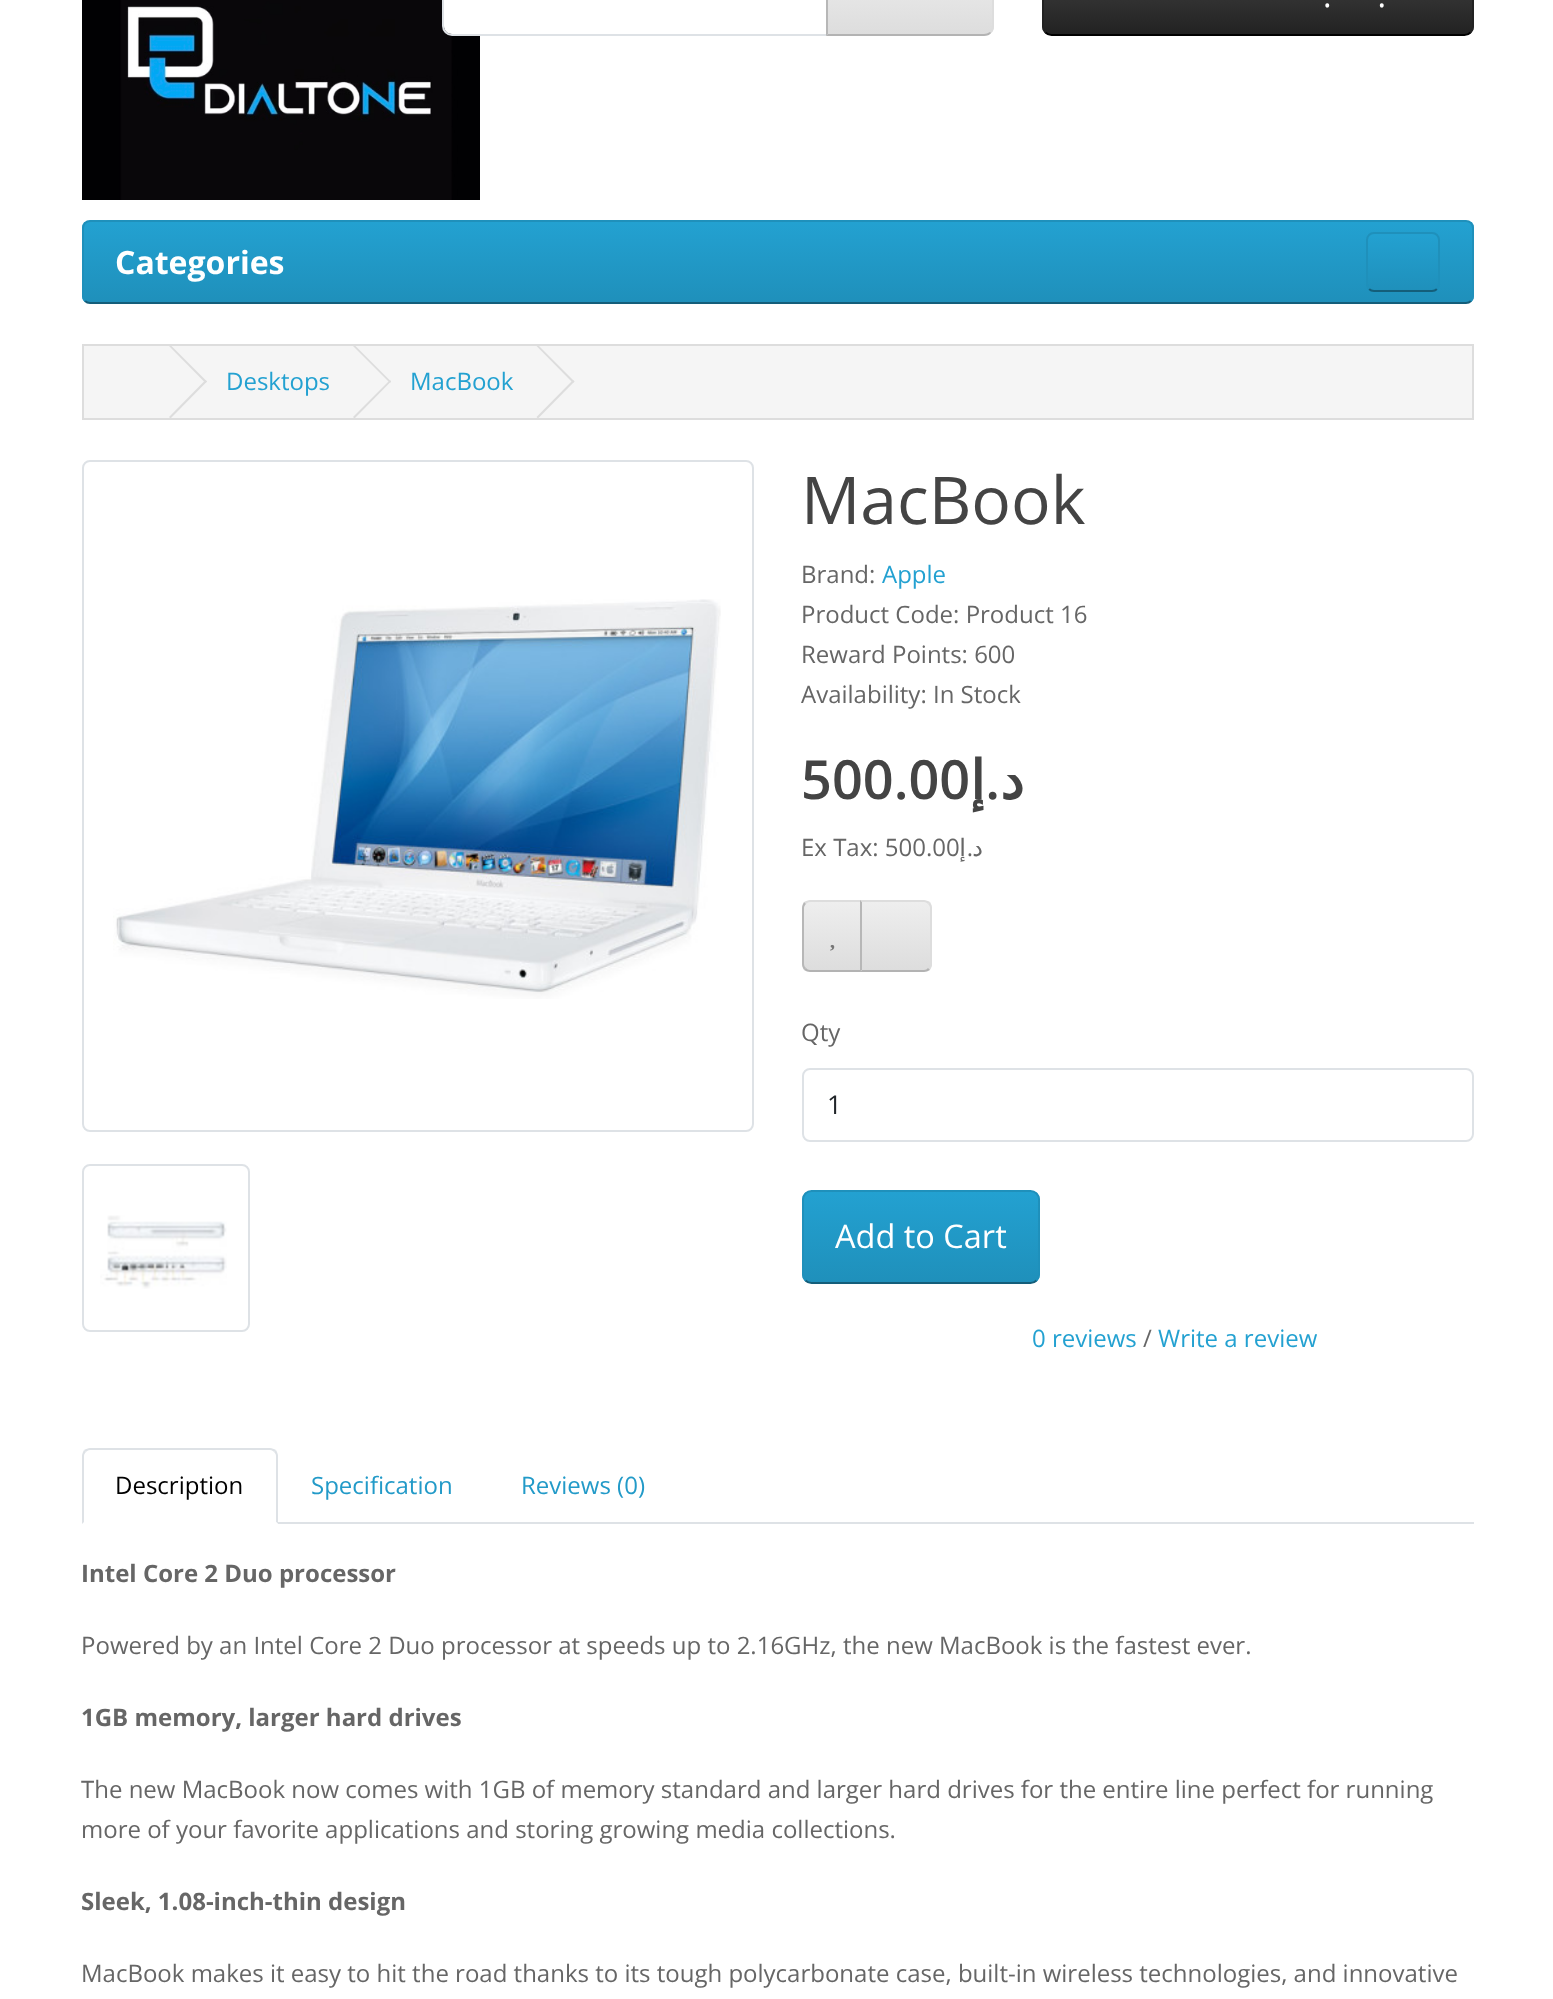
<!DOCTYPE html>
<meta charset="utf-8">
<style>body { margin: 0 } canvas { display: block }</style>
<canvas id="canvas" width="1553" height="1999"></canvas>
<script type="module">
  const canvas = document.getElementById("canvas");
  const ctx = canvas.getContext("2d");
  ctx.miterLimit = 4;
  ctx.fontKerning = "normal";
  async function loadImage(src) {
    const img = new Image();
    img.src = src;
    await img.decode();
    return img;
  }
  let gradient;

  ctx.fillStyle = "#ffffff";
  ctx.fillRect(0, 0, 1553, 1999);
  ctx.drawImage(await loadImage("img1.png"), 82, 0, 398, 200);
  ctx.beginPath();
  ctx.moveTo(452, -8);
  ctx.lineTo(826, -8);
  ctx.lineTo(826, 34);
  ctx.lineTo(452, 34);
  ctx.bezierCurveTo(447.5, 34, 444, 30.5, 444, 26);
  ctx.lineTo(444, 0);
  ctx.bezierCurveTo(444, -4.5, 447.5, -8, 452, -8);
  ctx.closePath();
  ctx.fill();
  ctx.beginPath();
  ctx.moveTo(452, -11);
  ctx.lineTo(827, -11);
  ctx.lineTo(827, 35);
  ctx.lineTo(452, 35);
  ctx.bezierCurveTo(447, 35, 443, 31, 443, 26);
  ctx.lineTo(443, -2);
  ctx.bezierCurveTo(443, -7, 447, -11, 452, -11);
  ctx.closePath();
  ctx.strokeStyle = "#dee2e6";
  ctx.lineWidth = 2;
  ctx.stroke();
  ctx.save();
  ctx.beginPath();
  ctx.moveTo(826, -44);
  ctx.lineTo(984, -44);
  ctx.bezierCurveTo(989.5, -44, 994, -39.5, 994, -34);
  ctx.lineTo(994, 26);
  ctx.bezierCurveTo(994, 31.5, 989.5, 36, 984, 36);
  ctx.lineTo(826, 36);
  ctx.closePath();
  ctx.clip();
  gradient = ctx.createLinearGradient(910, -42, 910, 34);
  gradient.addColorStop(0, "#eeeeee");
  gradient.addColorStop(1, "#dddddd");
  ctx.fillStyle = gradient;
  ctx.fillRect(828, 0, 166, 34);
  ctx.restore();
  ctx.fillStyle = "#dddddd";
  ctx.beginPath();
  ctx.moveTo(994, 26);
  ctx.lineTo(994, -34);
  ctx.bezierCurveTo(994, -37, 993, -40, 991, -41);
  ctx.lineTo(990, -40);
  ctx.bezierCurveTo(991, -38, 992, -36, 992, -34);
  ctx.lineTo(992, 26);
  ctx.bezierCurveTo(992, 28, 991, 30, 990, 32);
  ctx.lineTo(991, 33);
  ctx.bezierCurveTo(993, 32, 994, 29, 994, 26);
  ctx.closePath();
  ctx.fill();
  ctx.fillStyle = "#b3b3b3";
  ctx.beginPath();
  ctx.moveTo(984, 36);
  ctx.bezierCurveTo(987, 36, 990, 35, 991, 33);
  ctx.lineTo(990, 32);
  ctx.bezierCurveTo(988, 33, 986, 34, 984, 34);
  ctx.lineTo(828, 34);
  ctx.lineTo(826, 36);
  ctx.closePath();
  ctx.fill();
  ctx.fillStyle = "#b7b7b7";
  ctx.beginPath();
  ctx.moveTo(826, -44);
  ctx.lineTo(826, 36);
  ctx.lineTo(828, 34);
  ctx.lineTo(828, -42);
  ctx.closePath();
  ctx.fill();
  ctx.save();
  ctx.beginPath();
  ctx.roundRect(1042, -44, 432, 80, 10);
  ctx.clip();
  gradient = ctx.createLinearGradient(1258, -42, 1258, 34);
  gradient.addColorStop(0, "#444444");
  gradient.addColorStop(1, "#222222");
  ctx.fillStyle = gradient;
  ctx.fillRect(1042, 0, 432, 34);
  ctx.restore();
  ctx.beginPath();
  ctx.moveTo(1470.5, 32.5);
  ctx.bezierCurveTo(1469, 34, 1466.5, 35, 1464.5, 35);
  ctx.lineTo(1051.5, 35);
  ctx.bezierCurveTo(1049.5, 35, 1047, 34, 1045.5, 32.5);
  ctx.strokeStyle = "#000000";
  ctx.stroke();
  ctx.beginPath();
  ctx.moveTo(1045.5, 32.5);
  ctx.bezierCurveTo(1044, 31, 1043, 28.5, 1043, 26.5);
  ctx.lineTo(1043, -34.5);
  ctx.bezierCurveTo(1043, -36.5, 1044, -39, 1045.5, -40.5);
  ctx.bezierCurveTo(1047, -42, 1049.5, -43, 1051.5, -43);
  ctx.lineTo(1464.5, -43);
  ctx.bezierCurveTo(1466.5, -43, 1469, -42, 1470.5, -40.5);
  ctx.bezierCurveTo(1472, -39, 1473, -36.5, 1473, -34.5);
  ctx.lineTo(1473, 26.5);
  ctx.bezierCurveTo(1473, 28.5, 1472, 31, 1470.5, 32.5);
  ctx.strokeStyle = "#222222";
  ctx.stroke();
  ctx.font = "32.5px Open Sans";
  ctx.fillStyle = "#ffffff";
  ctx.fillText(".", 1323, 7);
  ctx.direction = "rtl";
  ctx.fillText(".", 1386, 7);
  ctx.save();
  ctx.beginPath();
  ctx.roundRect(82, 220, 1392, 84, 8);
  ctx.clip();
  gradient = ctx.createLinearGradient(778, 222, 778, 302);
  gradient.addColorStop(0, "#23a1d1");
  gradient.addColorStop(1, "#1f90bb");
  ctx.fillStyle = gradient;
  ctx.fillRect(82, 222, 1392, 80);
  ctx.restore();
  ctx.beginPath();
  ctx.moveTo(1471, 301);
  ctx.bezierCurveTo(1469.5, 302.5, 1468, 303, 1466, 303);
  ctx.lineTo(90, 303);
  ctx.bezierCurveTo(88, 303, 86.5, 302.5, 85, 301);
  ctx.strokeStyle = "#145e7a";
  ctx.stroke();
  ctx.beginPath();
  ctx.moveTo(85, 301);
  ctx.bezierCurveTo(83.5, 299.5, 83, 298, 83, 296);
  ctx.lineTo(83, 228);
  ctx.bezierCurveTo(83, 226, 83.5, 224.5, 85, 223);
  ctx.bezierCurveTo(86.5, 221.5, 88, 221, 90, 221);
  ctx.lineTo(1466, 221);
  ctx.bezierCurveTo(1468, 221, 1469.5, 221.5, 1471, 223);
  ctx.bezierCurveTo(1472.5, 224.5, 1473, 226, 1473, 228);
  ctx.lineTo(1473, 296);
  ctx.bezierCurveTo(1473, 298, 1472.5, 299.5, 1471, 301);
  ctx.strokeStyle = "#1f90bb";
  ctx.stroke();
  ctx.direction = "ltr";
  ctx.font = "bold 32px Open Sans";
  ctx.fillText("Categories", 115, 274);
  ctx.save();
  ctx.beginPath();
  ctx.roundRect(1366, 232, 74, 60, 8);
  ctx.clip();
  gradient = ctx.createLinearGradient(1403, 234, 1403, 290);
  gradient.addColorStop(0, "#23a1d1");
  gradient.addColorStop(1, "#1f90bb");
  ctx.fillStyle = gradient;
  ctx.fillRect(1366, 234, 74, 56);
  ctx.restore();
  ctx.beginPath();
  ctx.moveTo(1437, 289);
  ctx.bezierCurveTo(1435.5, 290.5, 1434, 291, 1432, 291);
  ctx.lineTo(1374, 291);
  ctx.bezierCurveTo(1372, 291, 1370.5, 290.5, 1369, 289);
  ctx.strokeStyle = "#145e7a";
  ctx.stroke();
  ctx.beginPath();
  ctx.moveTo(1369, 289);
  ctx.bezierCurveTo(1367.5, 287.5, 1367, 286, 1367, 284);
  ctx.lineTo(1367, 240);
  ctx.bezierCurveTo(1367, 238, 1367.5, 236.5, 1369, 235);
  ctx.bezierCurveTo(1370.5, 233.5, 1372, 233, 1374, 233);
  ctx.lineTo(1432, 233);
  ctx.bezierCurveTo(1434, 233, 1435.5, 233.5, 1437, 235);
  ctx.bezierCurveTo(1438.5, 236.5, 1439, 238, 1439, 240);
  ctx.lineTo(1439, 284);
  ctx.bezierCurveTo(1439, 286, 1438.5, 287.5, 1437, 289);
  ctx.strokeStyle = "#1f90bb";
  ctx.stroke();
  ctx.fillStyle = "#f5f5f5";
  ctx.beginPath();
  ctx.rect(83, 345, 1390, 74);
  ctx.fill();
  ctx.strokeStyle = "#dddddd";
  ctx.stroke();
  ctx.fillStyle = "#dddddd";
  ctx.beginPath();
  ctx.moveTo(169, 346);
  ctx.lineTo(170.5, 345);
  ctx.lineTo(207, 381.5);
  ctx.lineTo(205.5, 383);
  ctx.closePath();
  ctx.fill();
  ctx.beginPath();
  ctx.moveTo(169, 417);
  ctx.lineTo(205.5, 380);
  ctx.lineTo(207, 381.5);
  ctx.lineTo(170.5, 418.5);
  ctx.closePath();
  ctx.fill();
  ctx.font = "24px Open Sans";
  ctx.fillStyle = "#23a1d1";
  ctx.fillText("Desktops", 226, 390);
  ctx.fillStyle = "#dddddd";
  ctx.beginPath();
  ctx.moveTo(353, 346);
  ctx.lineTo(354.5, 345);
  ctx.lineTo(391, 381.5);
  ctx.lineTo(390, 383);
  ctx.closePath();
  ctx.fill();
  ctx.beginPath();
  ctx.moveTo(353, 417);
  ctx.lineTo(390, 380);
  ctx.lineTo(391, 381.5);
  ctx.lineTo(354.5, 418.5);
  ctx.closePath();
  ctx.fill();
  ctx.fillStyle = "#23a1d1";
  ctx.fillText("MacBook", 410, 390);
  ctx.fillStyle = "#dddddd";
  ctx.beginPath();
  ctx.moveTo(536.5, 346);
  ctx.lineTo(538, 345);
  ctx.lineTo(574.5, 381.5);
  ctx.lineTo(573, 383);
  ctx.closePath();
  ctx.fill();
  ctx.beginPath();
  ctx.moveTo(536.5, 417);
  ctx.lineTo(573, 380);
  ctx.lineTo(574.5, 381.5);
  ctx.lineTo(538, 418.5);
  ctx.closePath();
  ctx.fill();
  ctx.beginPath();
  ctx.roundRect(83, 461, 670, 670, 7);
  ctx.strokeStyle = "#dee2e6";
  ctx.stroke();
  ctx.drawImage(await loadImage("img2.png"), 113, 599, 608, 400);
  ctx.beginPath();
  ctx.roundRect(83, 1165, 166, 166, 7);
  ctx.stroke();
  ctx.drawImage(await loadImage("img3.png"), 100, 1215, 127, 74);
  ctx.font = "66px Open Sans";
  ctx.fillStyle = "#444444";
  ctx.fillText("MacBook", 801, 524);
  ctx.font = "24px Open Sans";
  ctx.fillStyle = "#666666";
  ctx.fillText("Brand:", 801, 583);
  ctx.fillStyle = "#23a1d1";
  ctx.fillText("Apple", 882, 583);
  ctx.fillStyle = "#666666";
  ctx.fillText("Product Code: Product 16", 801, 623);
  ctx.fillText("Reward Points: 600", 801, 663);
  ctx.fillText("Availability: In Stock", 801, 703);
  ctx.font = "600 54px Open Sans";
  ctx.fillStyle = "#444444";
  ctx.fillText("500.00", 801, 799);
  ctx.direction = "rtl";
  ctx.font = "bold 54px DejaVu Sans";
  ctx.fillText("إ", 985, 799);
  ctx.font = "600 54px Open Sans";
  ctx.fillText(".", 1000, 799);
  ctx.font = "bold 54px DejaVu Sans";
  ctx.fillText("د", 1024, 799);
  ctx.direction = "ltr";
  ctx.font = "24px Open Sans";
  ctx.fillStyle = "#666666";
  ctx.fillText("Ex Tax: 500.00", 801, 856);
  ctx.direction = "rtl";
  ctx.font = "24px DejaVu Sans";
  ctx.fillText("إ", 966, 856);
  ctx.font = "24px Open Sans";
  ctx.fillText(".", 973, 856);
  ctx.font = "24px DejaVu Sans";
  ctx.fillText("د", 983, 856);
  ctx.save();
  ctx.beginPath();
  ctx.roundRect(802, 900, 60, 72, [8, 0, 0, 8]);
  ctx.clip();
  gradient = ctx.createLinearGradient(832, 902, 832, 970);
  gradient.addColorStop(0, "#eeeeee");
  gradient.addColorStop(1, "#dddddd");
  ctx.fillStyle = gradient;
  ctx.fillRect(802, 902, 58, 68);
  ctx.restore();
  ctx.fillStyle = "#dddddd";
  ctx.beginPath();
  ctx.moveTo(810, 900);
  ctx.bezierCurveTo(808, 900, 806, 901, 804, 902);
  ctx.lineTo(806, 904);
  ctx.bezierCurveTo(807, 903, 808, 902, 810, 902);
  ctx.lineTo(860, 902);
  ctx.lineTo(862, 900);
  ctx.closePath();
  ctx.fill();
  ctx.fillStyle = "#b3b3b3";
  ctx.beginPath();
  ctx.moveTo(862, 972);
  ctx.lineTo(860, 970);
  ctx.lineTo(810, 970);
  ctx.bezierCurveTo(808, 970, 807, 969, 806, 968);
  ctx.lineTo(804, 970);
  ctx.bezierCurveTo(806, 971, 808, 972, 810, 972);
  ctx.closePath();
  ctx.fill();
  ctx.fillStyle = "#b7b7b7";
  ctx.beginPath();
  ctx.moveTo(802, 908);
  ctx.lineTo(802, 964);
  ctx.bezierCurveTo(802, 966, 803, 968, 804, 970);
  ctx.lineTo(806, 968);
  ctx.bezierCurveTo(805, 967, 804, 966, 804, 964);
  ctx.lineTo(804, 908);
  ctx.bezierCurveTo(804, 906, 805, 905, 806, 904);
  ctx.lineTo(804, 902);
  ctx.bezierCurveTo(803, 904, 802, 906, 802, 908);
  ctx.closePath();
  ctx.fill();
  ctx.drawImage(await loadImage("img4.png"), 830, 944, 5, 7);
  ctx.save();
  ctx.beginPath();
  ctx.roundRect(860, 900, 72, 72, [0, 8, 8, 0]);
  ctx.clip();
  gradient = ctx.createLinearGradient(896, 902, 896, 970);
  gradient.addColorStop(0, "#eeeeee");
  gradient.addColorStop(1, "#dddddd");
  ctx.fillStyle = gradient;
  ctx.fillRect(862, 902, 70, 68);
  ctx.restore();
  ctx.fillStyle = "#dddddd";
  ctx.beginPath();
  ctx.moveTo(860, 900);
  ctx.lineTo(862, 902);
  ctx.lineTo(924, 902);
  ctx.bezierCurveTo(926, 902, 927, 903, 928, 904);
  ctx.lineTo(930, 902);
  ctx.bezierCurveTo(928, 901, 926, 900, 924, 900);
  ctx.closePath();
  ctx.fill();
  ctx.beginPath();
  ctx.moveTo(932, 964);
  ctx.lineTo(932, 908);
  ctx.bezierCurveTo(932, 906, 931, 904, 930, 902);
  ctx.lineTo(928, 904);
  ctx.bezierCurveTo(929, 905, 930, 906, 930, 908);
  ctx.lineTo(930, 964);
  ctx.bezierCurveTo(930, 966, 929, 967, 928, 968);
  ctx.lineTo(930, 970);
  ctx.bezierCurveTo(931, 968, 932, 966, 932, 964);
  ctx.closePath();
  ctx.fill();
  ctx.fillStyle = "#b3b3b3";
  ctx.beginPath();
  ctx.moveTo(924, 972);
  ctx.bezierCurveTo(926, 972, 928, 971, 930, 970);
  ctx.lineTo(928, 968);
  ctx.bezierCurveTo(927, 969, 926, 970, 924, 970);
  ctx.lineTo(862, 970);
  ctx.lineTo(860, 972);
  ctx.closePath();
  ctx.fill();
  ctx.fillStyle = "#b7b7b7";
  ctx.beginPath();
  ctx.moveTo(860, 900);
  ctx.lineTo(860, 972);
  ctx.lineTo(862, 970);
  ctx.lineTo(862, 902);
  ctx.closePath();
  ctx.fill();
  ctx.direction = "ltr";
  ctx.font = "24px Open Sans";
  ctx.fillStyle = "#666666";
  ctx.fillText("Qty", 801, 1041);
  ctx.beginPath();
  ctx.roundRect(803, 1069, 670, 72, 7);
  ctx.stroke();
  ctx.font = "26px Open Sans";
  ctx.fillStyle = "#212529";
  ctx.fillText("1", 827, 1114);
  ctx.save();
  ctx.beginPath();
  ctx.roundRect(802, 1190, 238, 94, 10);
  ctx.clip();
  gradient = ctx.createLinearGradient(921, 1192, 921, 1282);
  gradient.addColorStop(0, "#23a1d1");
  gradient.addColorStop(1, "#1f90bb");
  ctx.fillStyle = gradient;
  ctx.fillRect(802, 1192, 238, 90);
  ctx.restore();
  ctx.beginPath();
  ctx.moveTo(1036.5, 1280.5);
  ctx.bezierCurveTo(1035, 1282, 1032.5, 1283, 1030.5, 1283);
  ctx.lineTo(811.5, 1283);
  ctx.bezierCurveTo(809.5, 1283, 807, 1282, 805.5, 1280.5);
  ctx.strokeStyle = "#145e7a";
  ctx.stroke();
  ctx.beginPath();
  ctx.moveTo(805.5, 1280.5);
  ctx.bezierCurveTo(804, 1279, 803, 1276.5, 803, 1274.5);
  ctx.lineTo(803, 1199.5);
  ctx.bezierCurveTo(803, 1197.5, 804, 1195, 805.5, 1193.5);
  ctx.bezierCurveTo(807, 1192, 809.5, 1191, 811.5, 1191);
  ctx.lineTo(1030.5, 1191);
  ctx.bezierCurveTo(1032.5, 1191, 1035, 1192, 1036.5, 1193.5);
  ctx.bezierCurveTo(1038, 1195, 1039, 1197.5, 1039, 1199.5);
  ctx.lineTo(1039, 1274.5);
  ctx.bezierCurveTo(1039, 1276.5, 1038, 1279, 1036.5, 1280.5);
  ctx.strokeStyle = "#1f90bb";
  ctx.stroke();
  ctx.font = "32.5px Open Sans";
  ctx.fillStyle = "#ffffff";
  ctx.fillText("Add to Cart", 835, 1248);
  ctx.font = "24px Open Sans";
  ctx.fillStyle = "#23a1d1";
  ctx.fillText("0 reviews", 1032, 1347);
  ctx.fillStyle = "#666666";
  ctx.fillText("/", 1143, 1347);
  ctx.fillStyle = "#23a1d1";
  ctx.fillText("Write a review", 1158, 1347);
  ctx.fillStyle = "#dee2e6";
  ctx.fillRect(278, 1522, 1196, 2);
  ctx.beginPath();
  ctx.moveTo(90, 1448);
  ctx.bezierCurveTo(88, 1448, 86, 1449, 84, 1450);
  ctx.lineTo(86, 1452);
  ctx.bezierCurveTo(87, 1451, 88, 1450, 90, 1450);
  ctx.lineTo(270, 1450);
  ctx.bezierCurveTo(272, 1450, 273, 1451, 274, 1452);
  ctx.lineTo(276, 1450);
  ctx.bezierCurveTo(274, 1449, 272, 1448, 270, 1448);
  ctx.closePath();
  ctx.fill();
  ctx.beginPath();
  ctx.moveTo(278, 1524);
  ctx.lineTo(278, 1456);
  ctx.bezierCurveTo(278, 1454, 277, 1452, 276, 1450);
  ctx.lineTo(274, 1452);
  ctx.bezierCurveTo(275, 1453, 276, 1454, 276, 1456);
  ctx.lineTo(276, 1522);
  ctx.closePath();
  ctx.fill();
  ctx.fillStyle = "#ffffff";
  ctx.beginPath();
  ctx.moveTo(278, 1524);
  ctx.lineTo(276, 1522);
  ctx.lineTo(84, 1522);
  ctx.lineTo(82, 1524);
  ctx.closePath();
  ctx.fill();
  ctx.fillStyle = "#dee2e6";
  ctx.beginPath();
  ctx.moveTo(82, 1524);
  ctx.lineTo(84, 1522);
  ctx.lineTo(84, 1456);
  ctx.bezierCurveTo(84, 1454, 85, 1453, 86, 1452);
  ctx.lineTo(84, 1450);
  ctx.bezierCurveTo(83, 1452, 82, 1454, 82, 1456);
  ctx.closePath();
  ctx.fill();
  ctx.fillStyle = "#000000";
  ctx.fillText("Description", 115, 1494);
  ctx.fillStyle = "#229ac8";
  ctx.fillText("Specification", 311, 1494);
  ctx.fillText("Reviews (0)", 521, 1494);
  ctx.font = "bold 24px Open Sans";
  ctx.fillStyle = "#666666";
  ctx.fillText("Intel Core 2 Duo processor", 81, 1582);
  ctx.font = "24px Open Sans";
  ctx.fillText("Powered by an Intel Core 2 Duo processor at speeds up to 2.16GHz, the new MacBook is the fastest ever.", 81, 1654);
  ctx.font = "bold 24px Open Sans";
  ctx.fillText("1GB memory, larger hard drives", 81, 1726);
  ctx.font = "24px Open Sans";
  ctx.fillText("The new MacBook now comes with 1GB of memory standard and larger hard drives for the entire line perfect for running", 81, 1798);
  ctx.fillText("more of your favorite applications and storing growing media collections.", 81, 1838);
  ctx.font = "bold 24px Open Sans";
  ctx.fillText("Sleek, 1.08-inch-thin design", 81, 1910);
  ctx.font = "24px Open Sans";
  ctx.fillText("MacBook makes it easy to hit the road thanks to its tough polycarbonate case, built-in wireless technologies, and innovative", 81, 1982);
</script>
